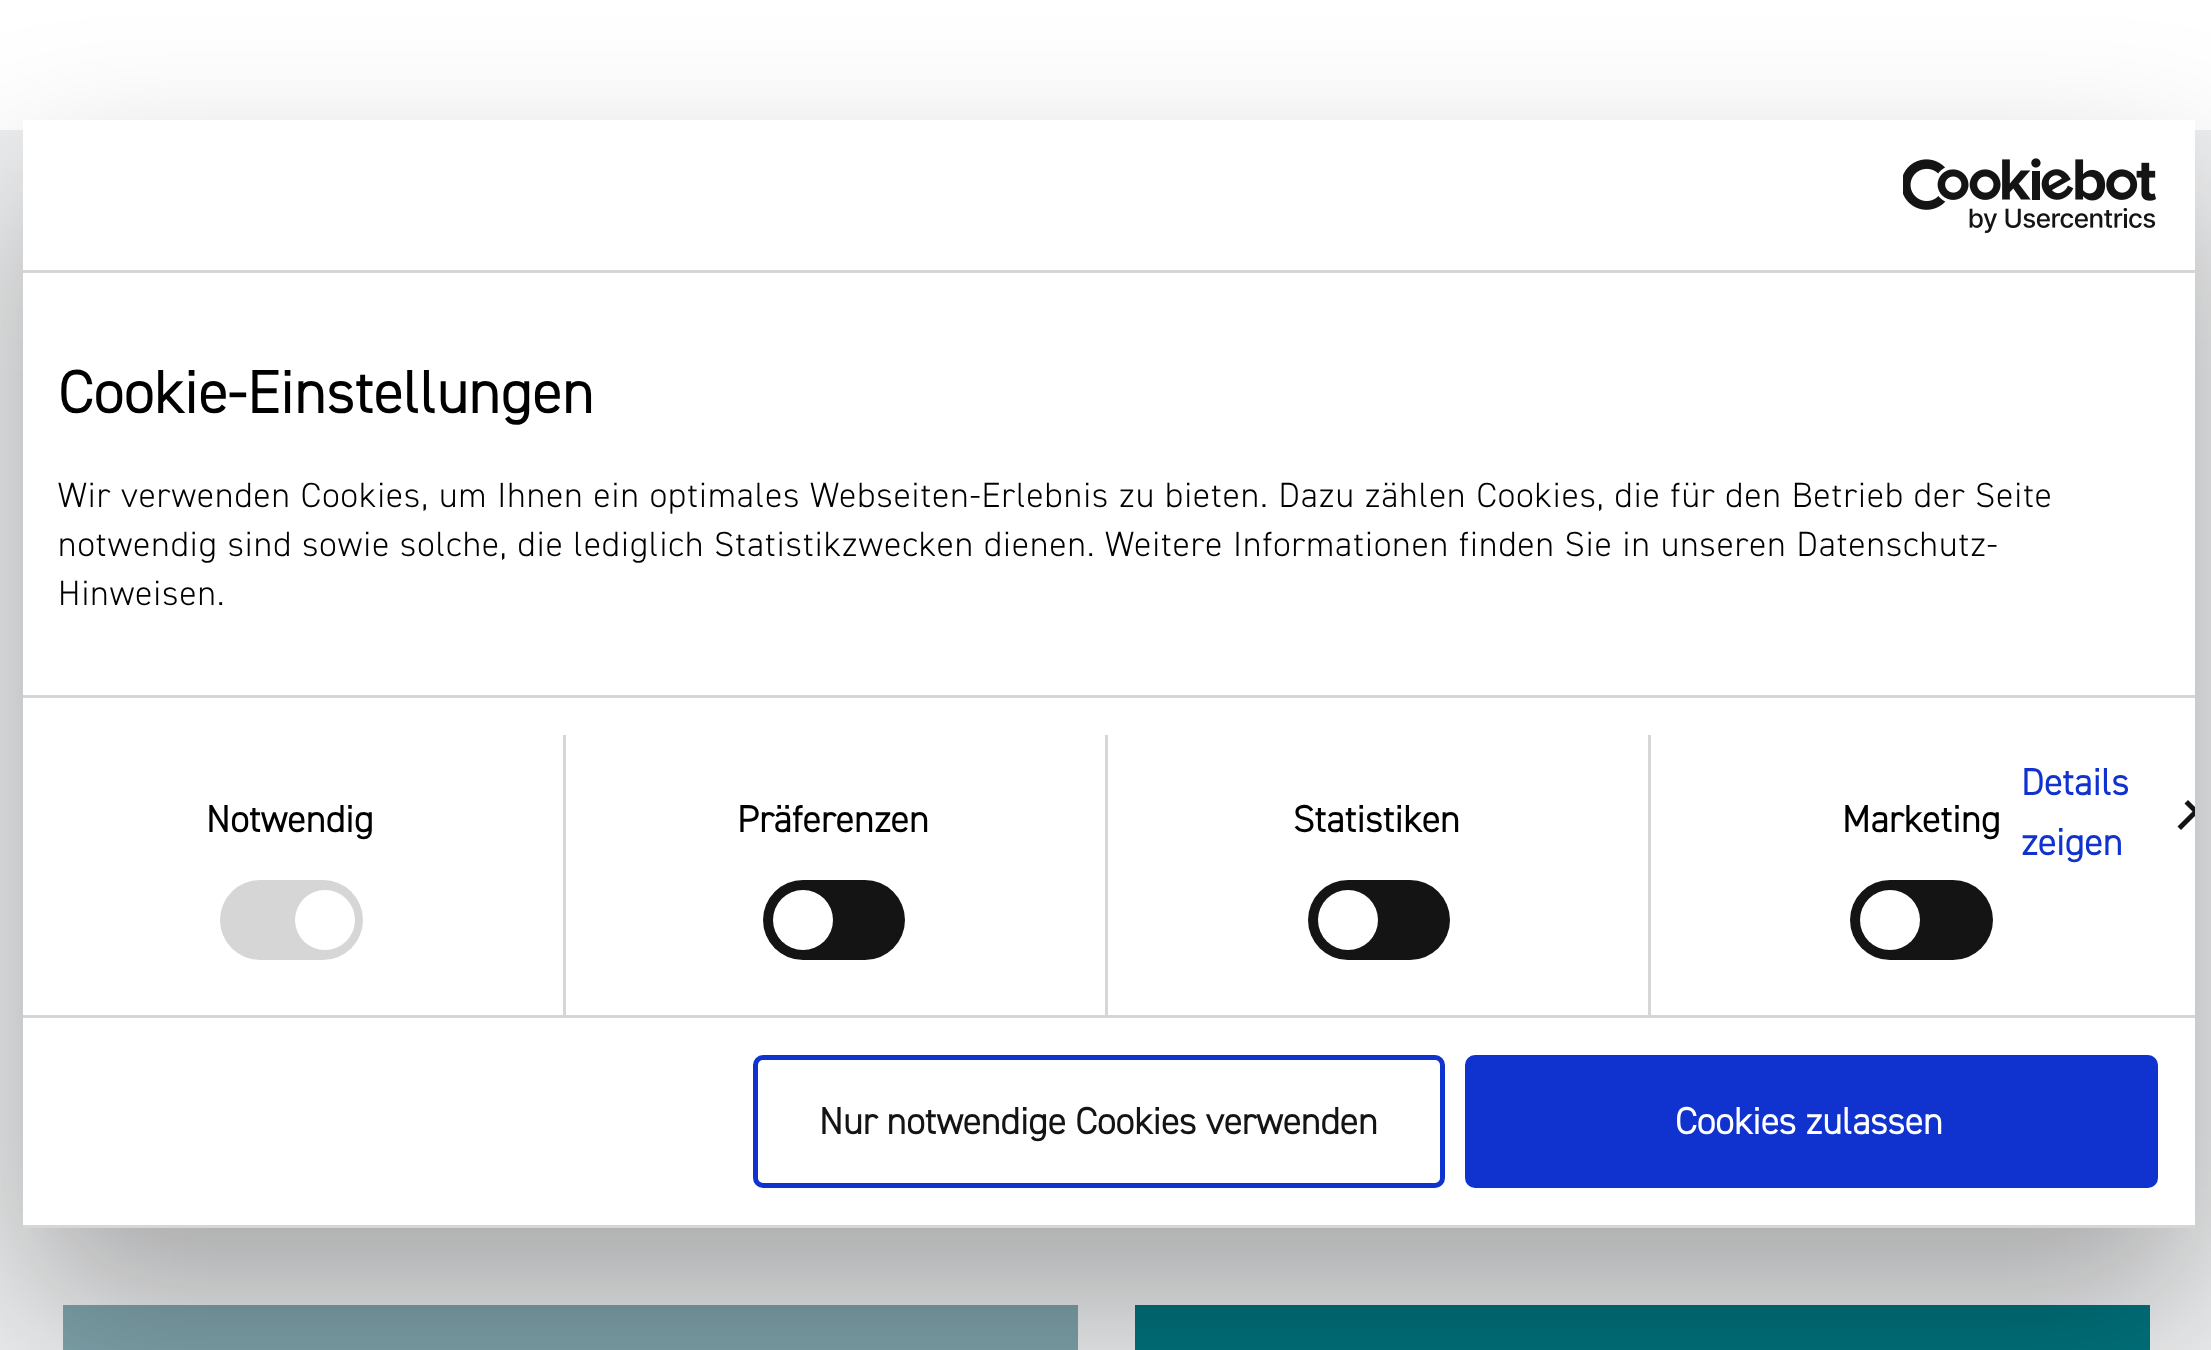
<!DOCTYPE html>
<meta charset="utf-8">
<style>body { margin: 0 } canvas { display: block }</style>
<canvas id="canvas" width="2211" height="1350"></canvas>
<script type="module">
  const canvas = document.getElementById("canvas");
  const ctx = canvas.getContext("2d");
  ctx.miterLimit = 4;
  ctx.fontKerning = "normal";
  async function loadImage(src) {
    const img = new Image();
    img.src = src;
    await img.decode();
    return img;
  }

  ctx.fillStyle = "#eeeff0";
  ctx.fillRect(0, 0, 2211, 1350);
  ctx.fillStyle = "#ffffff";
  ctx.fillRect(0, 0, 2211, 130);
  ctx.fillStyle = "#80a4ac";
  ctx.fillRect(63, 1305, 1015, 45);
  ctx.fillStyle = "#00737d";
  ctx.fillRect(1135, 1305, 1015, 45);
  ctx.fillStyle = "rgba(0, 0, 0, 0.3)";
  ctx.filter = "blur(85px)";
  ctx.beginPath();
  ctx.rect(23, 200, 2172, 1108);
  ctx.fill();
  ctx.filter = "none";
  ctx.fillStyle = "#ffffff";
  ctx.fillRect(23, 120, 2172, 1105);
  ctx.fillStyle = "#d6d6d6";
  ctx.fillRect(23, 270, 2172, 3);
  ctx.drawImage(await loadImage("img1.png"), 1903, 158, 253, 75);
  ctx.fillRect(23, 695, 2172, 3);
  ctx.letterSpacing = "0.6px";
  ctx.font = "bold 60px 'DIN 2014'";
  ctx.fillStyle = "#000000";
  ctx.fillText("Cookie-Einstellungen", 58, 413);
  ctx.letterSpacing = "1.05px";
  ctx.font = "300 35px 'DIN 2014'";
  ctx.fillText("Wir verwenden Cookies, um Ihnen ein optimales Webseiten-Erlebnis zu bieten. Dazu zählen Cookies, die für den Betrieb der Seite", 58, 507);
  ctx.fillText("notwendig sind sowie solche, die lediglich Statistikzwecken dienen. Weitere Informationen finden Sie in unseren Datenschutz-", 58, 556);
  ctx.fillText("Hinweisen.", 58, 605);
  ctx.fillStyle = "#d6d6d6";
  ctx.fillRect(23, 1015, 2172, 3);
  ctx.fillRect(563, 735, 3, 280);
  ctx.letterSpacing = "0.25px";
  ctx.font = "bold 37.5px 'DIN 2014'";
  ctx.fillStyle = "#000000";
  ctx.fillText("Notwendig", 206, 832);
  ctx.fillStyle = "#d6d6d6";
  ctx.beginPath();
  ctx.roundRect(220, 880, 143, 80, 40);
  ctx.fill();
  ctx.fillStyle = "#ffffff";
  ctx.beginPath();
  ctx.arc(325, 920, 30, 0, Math.PI * 2);
  ctx.fill();
  ctx.fillStyle = "#d6d6d6";
  ctx.fillRect(1105, 735, 3, 280);
  ctx.fillStyle = "#000000";
  ctx.fillText("Präferenzen", 737, 832);
  ctx.fillStyle = "#141414";
  ctx.beginPath();
  ctx.roundRect(763, 880, 142, 80, 40);
  ctx.fill();
  ctx.fillStyle = "#ffffff";
  ctx.beginPath();
  ctx.arc(803, 920, 30, 0, Math.PI * 2);
  ctx.fill();
  ctx.fillStyle = "#d6d6d6";
  ctx.fillRect(1648, 735, 3, 280);
  ctx.fillStyle = "#000000";
  ctx.fillText("Statistiken", 1293, 832);
  ctx.fillStyle = "#141414";
  ctx.beginPath();
  ctx.roundRect(1308, 880, 142, 80, 40);
  ctx.fill();
  ctx.fillStyle = "#ffffff";
  ctx.beginPath();
  ctx.arc(1348, 920, 30, 0, Math.PI * 2);
  ctx.fill();
  ctx.fillStyle = "#000000";
  ctx.fillText("Marketing", 1842, 832);
  ctx.fillStyle = "#141414";
  ctx.beginPath();
  ctx.roundRect(1850, 880, 143, 80, 40);
  ctx.fill();
  ctx.fillStyle = "#ffffff";
  ctx.beginPath();
  ctx.arc(1890, 920, 30, 0, Math.PI * 2);
  ctx.fill();
  ctx.fillStyle = "#1032cf";
  ctx.fillText("Details", 2021, 795);
  ctx.save();
  ctx.beginPath();
  ctx.rect(23, 273, 2172, 745);
  ctx.clip();
  ctx.fillStyle = "#141414";
  ctx.beginPath();
  ctx.moveTo(2188, 800);
  ctx.lineTo(2199.5, 811.5);
  ctx.lineTo(2196, 815);
  ctx.lineTo(2184.5, 803.5);
  ctx.closePath();
  ctx.fill();
  ctx.beginPath();
  ctx.moveTo(2196, 808);
  ctx.lineTo(2199.5, 811.5);
  ctx.lineTo(2181, 830);
  ctx.lineTo(2177.5, 826.5);
  ctx.closePath();
  ctx.fill();
  ctx.restore();
  ctx.fillText("zeigen", 2021, 855);
  ctx.fillStyle = "#d6d6d6";
  ctx.fillRect(23, 1225, 2172, 3);
  ctx.beginPath();
  ctx.roundRect(755.5, 1057.5, 687, 128, 7.5);
  ctx.strokeStyle = "#1032cf";
  ctx.lineWidth = 5;
  ctx.stroke();
  ctx.letterSpacing = "0px";
  ctx.fillStyle = "#141414";
  ctx.fillText("Nur notwendige Cookies verwenden", 819, 1134);
  ctx.fillStyle = "#1032cf";
  ctx.beginPath();
  ctx.roundRect(1467.5, 1057.5, 688, 128, 7.5);
  ctx.fill();
  ctx.stroke();
  ctx.fillStyle = "#ffffff";
  ctx.fillText("Cookies zulassen", 1675, 1134);
</script>
